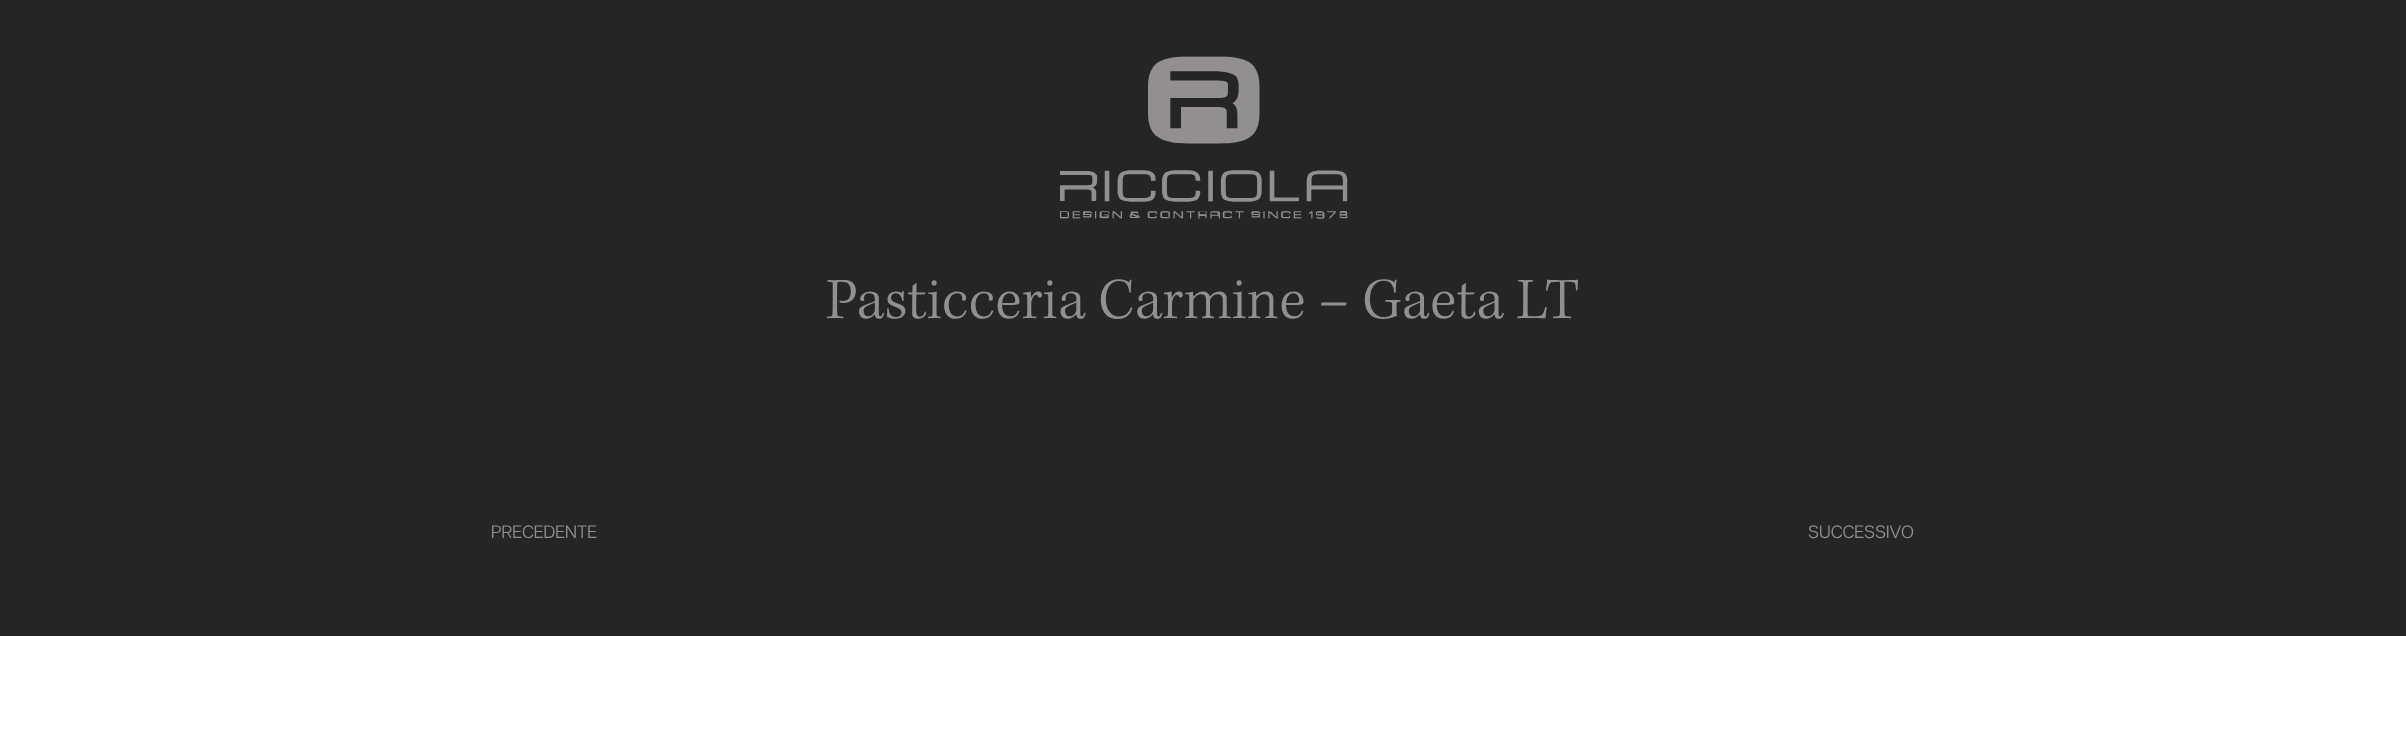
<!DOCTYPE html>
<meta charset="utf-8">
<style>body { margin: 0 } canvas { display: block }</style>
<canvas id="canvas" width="2406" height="741"></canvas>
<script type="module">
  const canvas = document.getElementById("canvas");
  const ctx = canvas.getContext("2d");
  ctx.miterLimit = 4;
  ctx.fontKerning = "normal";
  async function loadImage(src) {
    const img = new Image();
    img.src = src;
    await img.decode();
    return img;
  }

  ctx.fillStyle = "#252524";
  ctx.fillRect(0, 0, 2406, 741);
  ctx.drawImage(await loadImage("img1.png"), 1060, 56, 288, 163);
  ctx.font = "300 60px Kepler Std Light";
  ctx.fillStyle = "#938f8f";
  ctx.fillText("Pasticceria Carmine – Gaeta LT", 826, 318);
  ctx.font = "18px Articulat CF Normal";
  ctx.fillText("PRECEDENTE", 491, 538);
  ctx.fillText("SUCCESSIVO", 1808, 538);
  ctx.fillStyle = "#ffffff";
  ctx.fillRect(0, 636, 2406, 105);
</script>
